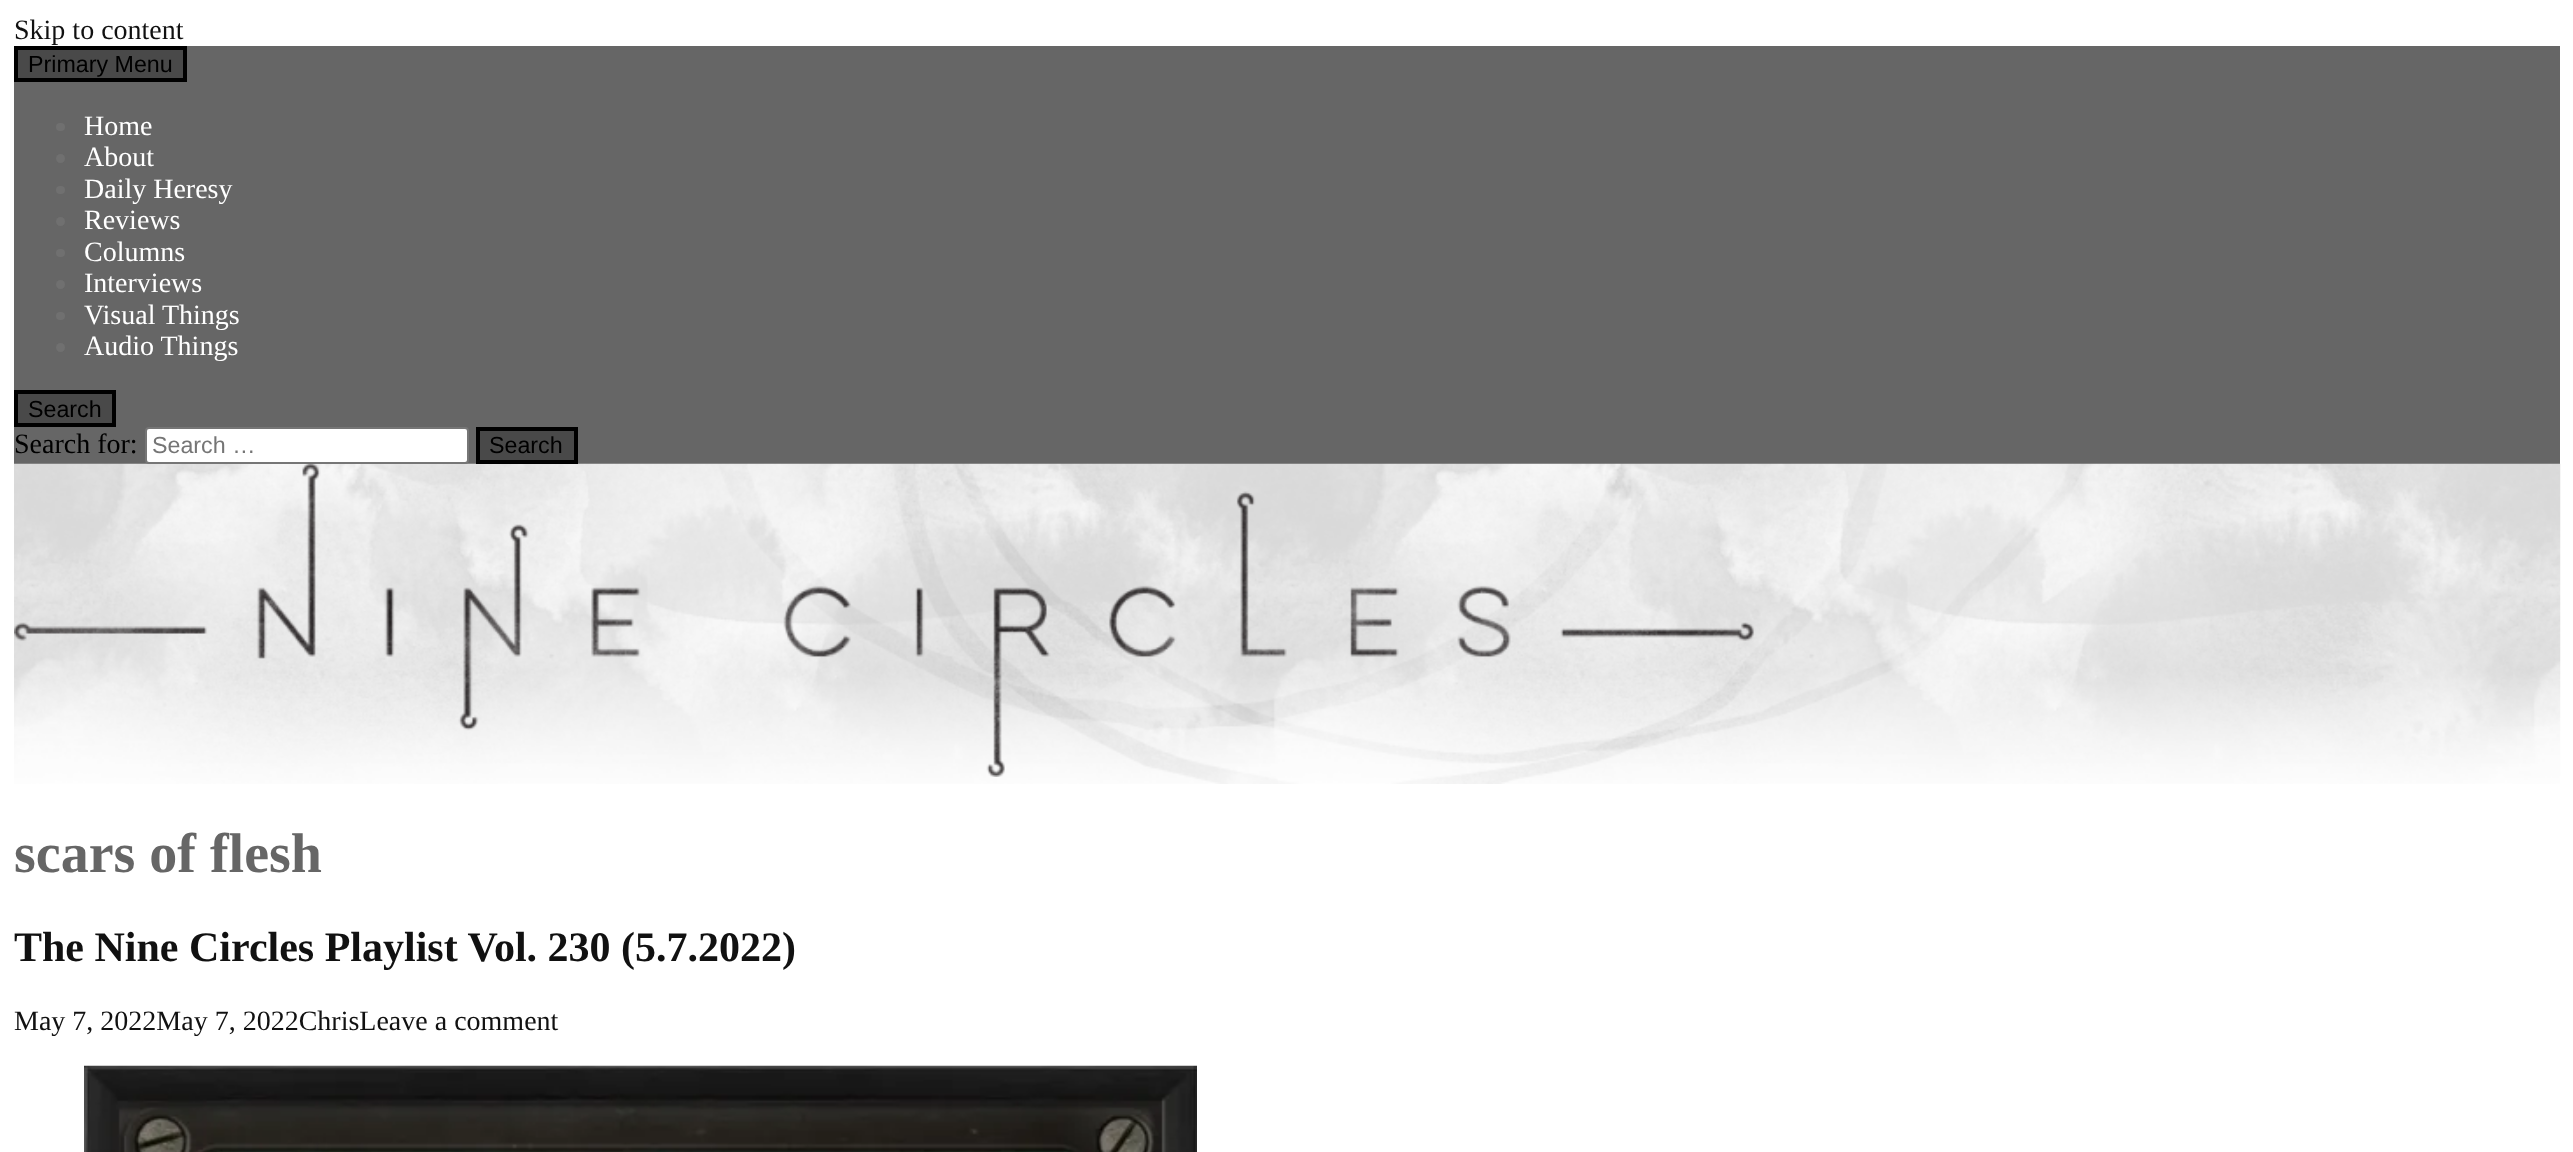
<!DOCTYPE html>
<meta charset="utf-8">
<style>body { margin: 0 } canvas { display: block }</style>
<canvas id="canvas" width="2573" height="1152"></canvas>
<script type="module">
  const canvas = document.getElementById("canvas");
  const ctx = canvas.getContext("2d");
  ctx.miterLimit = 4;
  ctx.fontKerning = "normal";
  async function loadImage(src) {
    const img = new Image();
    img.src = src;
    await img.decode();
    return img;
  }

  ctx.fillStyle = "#ffffff";
  ctx.fillRect(0, 0, 2573, 1152);
  ctx.font = "28px Liberation Serif";
  ctx.fillStyle = "#111111";
  ctx.fillText("Skip to content", 14, 39);
  ctx.fillStyle = "#666666";
  ctx.fillRect(14, 46, 2546, 418);
  ctx.fillStyle = "#494949";
  ctx.beginPath();
  ctx.rect(16, 48, 169, 32);
  ctx.fill();
  ctx.strokeStyle = "#000000";
  ctx.lineWidth = 4;
  ctx.stroke();
  ctx.font = "23.25px Liberation Sans";
  ctx.fillStyle = "#000000";
  ctx.fillText("Primary Menu", 28, 72);
  ctx.fillStyle = "#707070";
  ctx.beginPath();
  ctx.roundRect(56, 123, 9, 8, 4);
  ctx.fill();
  ctx.font = "28px Liberation Serif";
  ctx.fillStyle = "#ffffff";
  ctx.fillText("Home", 84, 135);
  ctx.fillStyle = "#707070";
  ctx.beginPath();
  ctx.arc(60.5, 158.5, 4.5, 0, Math.PI * 2);
  ctx.fill();
  ctx.fillStyle = "#ffffff";
  ctx.fillText("About", 84, 166);
  ctx.fillStyle = "#707070";
  ctx.beginPath();
  ctx.roundRect(56, 186, 9, 8, 4);
  ctx.fill();
  ctx.fillStyle = "#ffffff";
  ctx.fillText("Daily Heresy", 84, 198);
  ctx.fillStyle = "#707070";
  ctx.beginPath();
  ctx.arc(60.5, 221.5, 4.5, 0, Math.PI * 2);
  ctx.fill();
  ctx.fillStyle = "#ffffff";
  ctx.fillText("Reviews", 84, 229);
  ctx.fillStyle = "#707070";
  ctx.beginPath();
  ctx.roundRect(56, 249, 9, 8, 4);
  ctx.fill();
  ctx.fillStyle = "#ffffff";
  ctx.fillText("Columns", 84, 261);
  ctx.fillStyle = "#707070";
  ctx.beginPath();
  ctx.arc(60.5, 284.5, 4.5, 0, Math.PI * 2);
  ctx.fill();
  ctx.fillStyle = "#ffffff";
  ctx.fillText("Interviews", 84, 292);
  ctx.fillStyle = "#707070";
  ctx.beginPath();
  ctx.roundRect(56, 312, 9, 8, 4);
  ctx.fill();
  ctx.fillStyle = "#ffffff";
  ctx.fillText("Visual Things", 84, 324);
  ctx.fillStyle = "#707070";
  ctx.beginPath();
  ctx.arc(60.5, 347.5, 4.5, 0, Math.PI * 2);
  ctx.fill();
  ctx.fillStyle = "#ffffff";
  ctx.fillText("Audio Things", 84, 355);
  ctx.fillStyle = "#494949";
  ctx.beginPath();
  ctx.rect(16, 392, 98, 33);
  ctx.fill();
  ctx.stroke();
  ctx.font = "23.25px Liberation Sans";
  ctx.fillStyle = "#000000";
  ctx.fillText("Search", 28, 417);
  ctx.font = "28px Liberation Serif";
  ctx.fillText("Search for:", 14, 453);
  ctx.drawImage(await loadImage("img1.png"), 14, 463, 2547, 321);
  ctx.fillStyle = "#ffffff";
  ctx.beginPath();
  ctx.roundRect(146, 428, 322, 35, 3);
  ctx.fill();
  ctx.strokeStyle = "#767676";
  ctx.lineWidth = 2;
  ctx.stroke();
  ctx.font = "23.25px Liberation Sans";
  ctx.fillStyle = "#757575";
  ctx.fillText("Search …", 152, 453);
  ctx.drawImage(await loadImage("img2.png"), 14, 463, 1740, 314);
  ctx.fillStyle = "#494949";
  ctx.beginPath();
  ctx.rect(478, 429, 98, 33);
  ctx.fill();
  ctx.strokeStyle = "#000000";
  ctx.lineWidth = 4;
  ctx.stroke();
  ctx.fillStyle = "#000000";
  ctx.fillText("Search", 489, 453);
  ctx.font = "bold 56px Liberation Serif";
  ctx.fillStyle = "#666666";
  ctx.fillText("scars of flesh", 14, 872);
  ctx.font = "bold 42px Liberation Serif";
  ctx.fillStyle = "#111111";
  ctx.fillText("The Nine Circles Playlist Vol. 230 (5.7.2022)", 14, 961);
  ctx.font = "28px Liberation Serif";
  ctx.fillText("May 7, 2022May 7, 2022ChrisLeave a comment", 14, 1030);
  ctx.drawImage(await loadImage("img3.png"), 84, 1065, 1113, 87);
</script>
